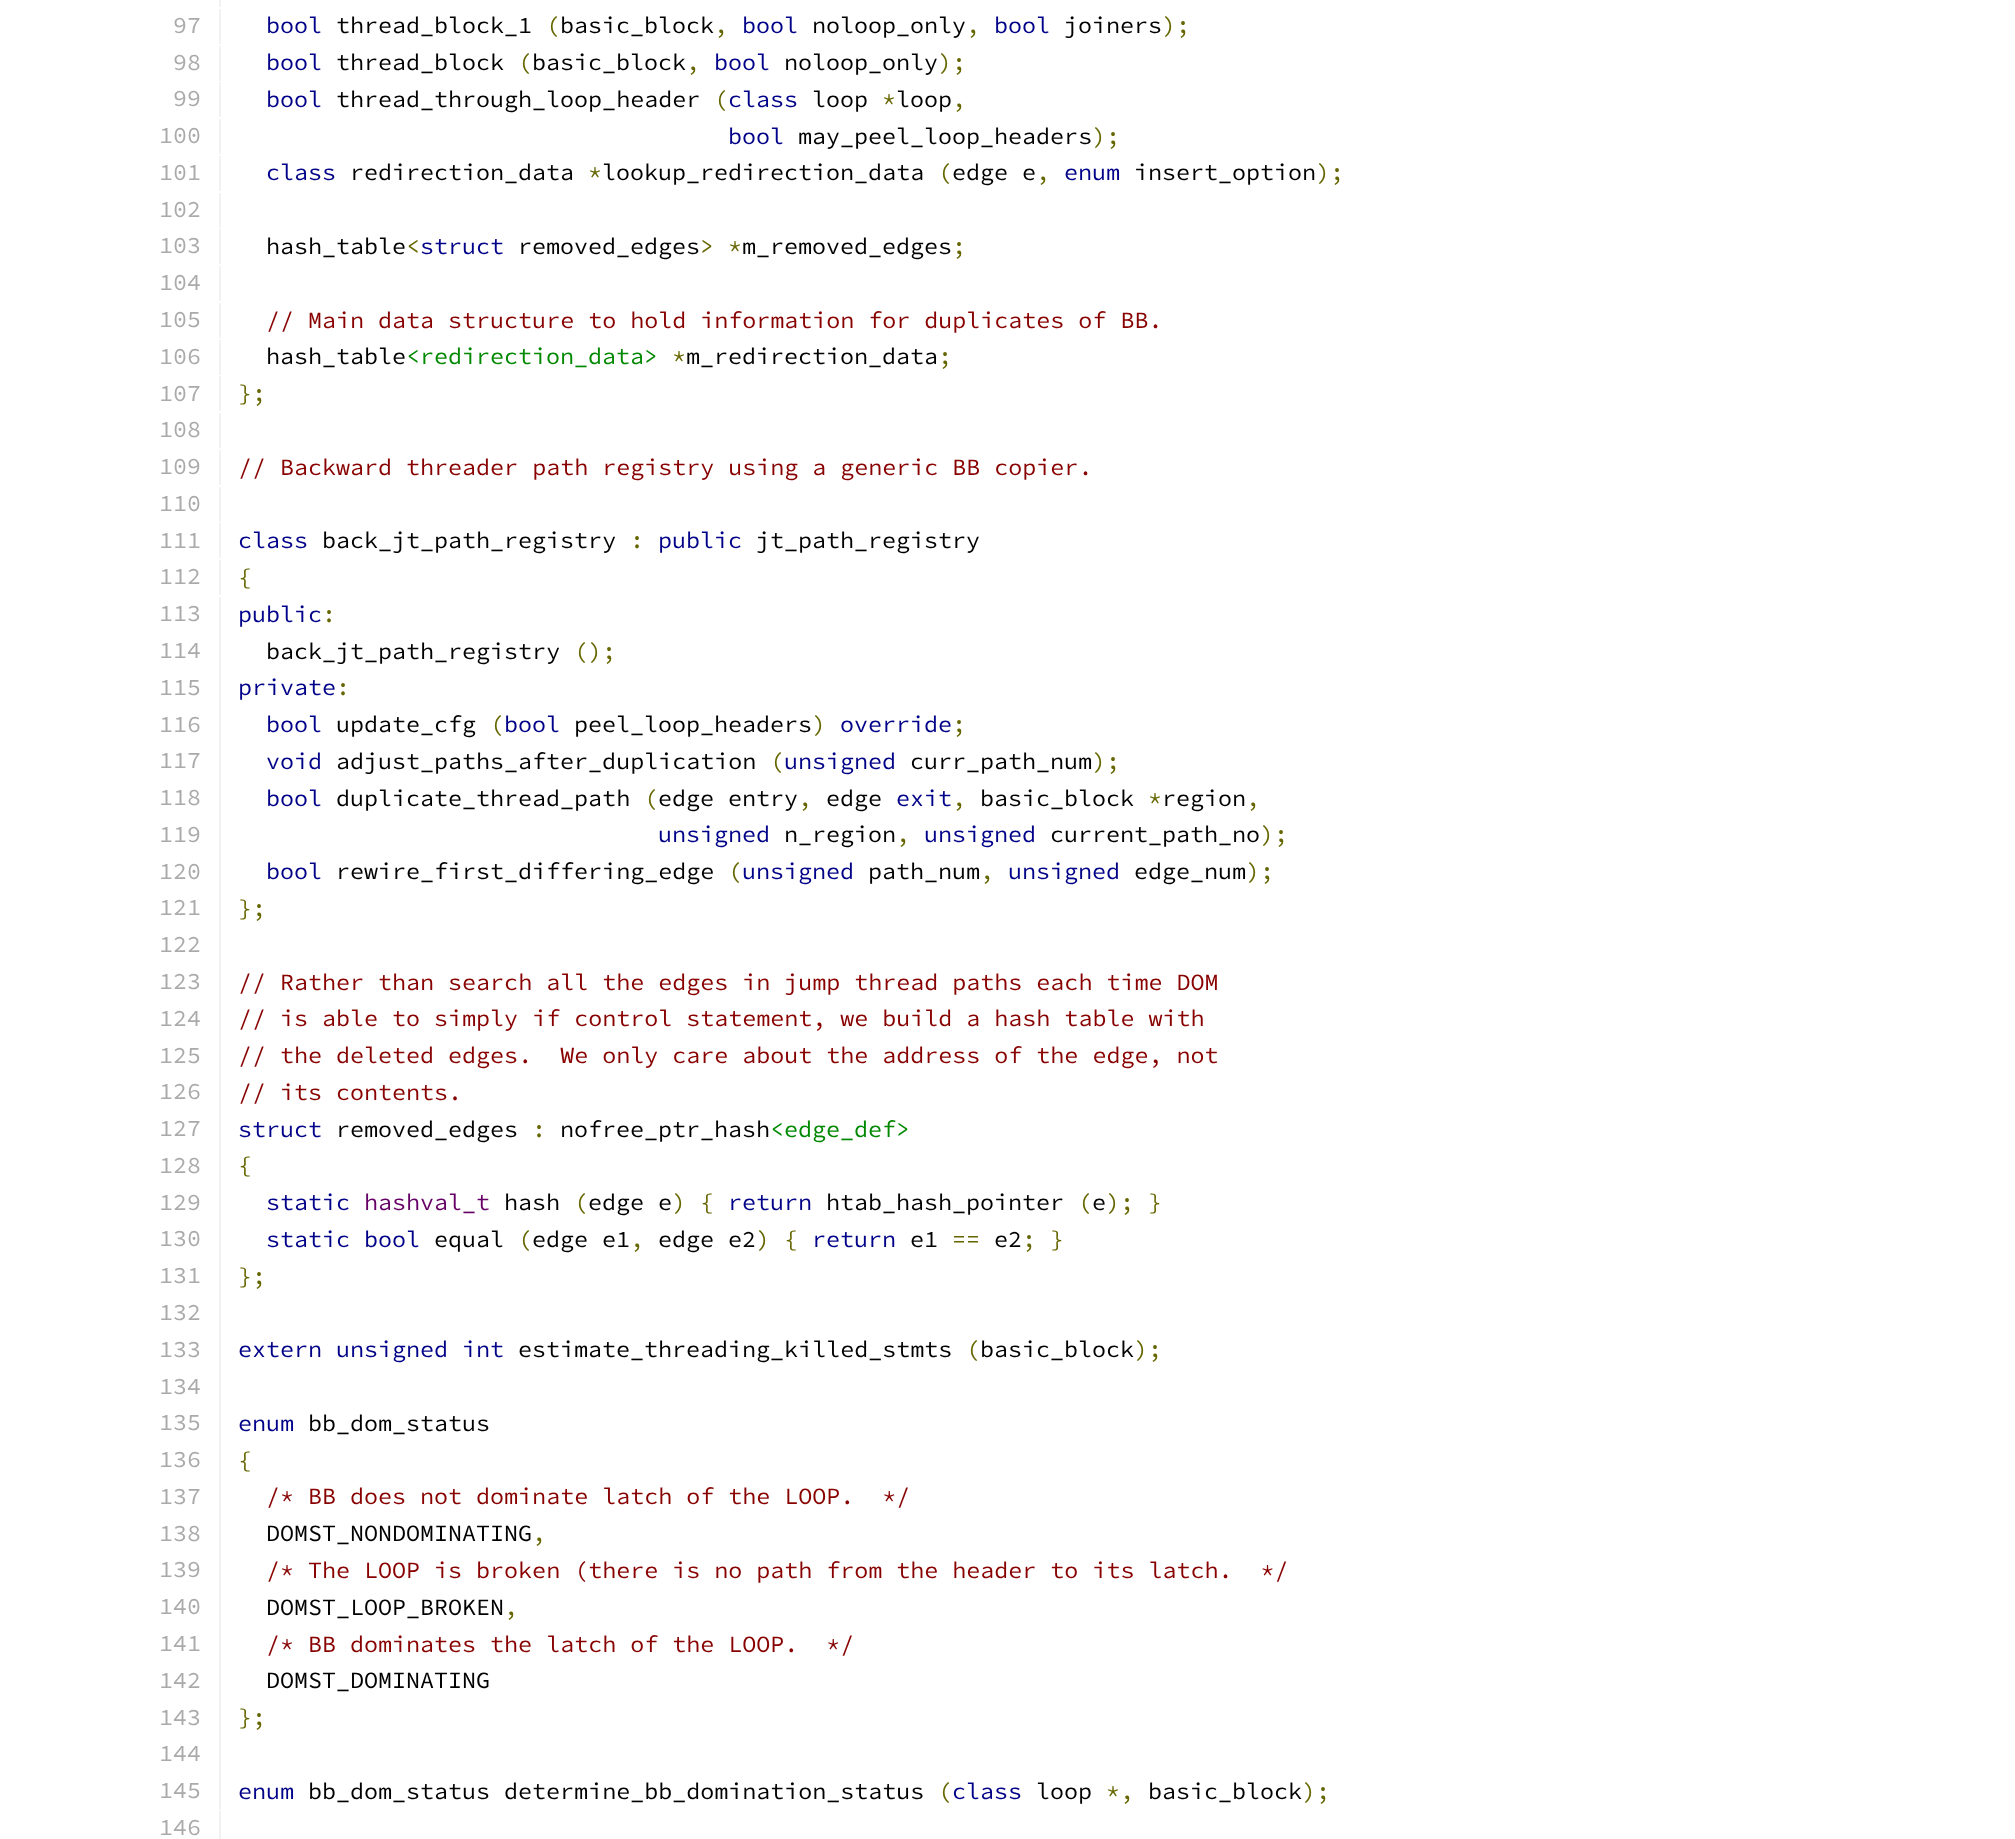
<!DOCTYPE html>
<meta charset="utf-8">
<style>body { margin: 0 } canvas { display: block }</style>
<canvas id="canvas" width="2015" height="1839"></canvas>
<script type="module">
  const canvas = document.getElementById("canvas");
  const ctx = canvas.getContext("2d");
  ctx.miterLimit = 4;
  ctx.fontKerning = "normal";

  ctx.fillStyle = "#ffffff";
  ctx.fillRect(0, 0, 2015, 1839);
  ctx.fillStyle = "#f1f2f3";
  ctx.fillRect(219, 0, 2, 7);
  ctx.fillRect(219, 9, 2, 35);
  ctx.font = "200 23.35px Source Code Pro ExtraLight";
  ctx.fillStyle = "#aaaaaa";
  ctx.fillText("97", 173, 33);
  ctx.fillStyle = "#000088";
  ctx.fillText("bool", 266, 33);
  ctx.fillStyle = "#000000";
  ctx.fillText("thread_block_1", 336, 33);
  ctx.fillStyle = "#666600";
  ctx.fillText("(", 546, 33);
  ctx.fillStyle = "#000000";
  ctx.fillText("basic_block", 560, 33);
  ctx.fillStyle = "#666600";
  ctx.fillText(",", 714, 33);
  ctx.fillStyle = "#000088";
  ctx.fillText("bool", 742, 33);
  ctx.fillStyle = "#000000";
  ctx.fillText("noloop_only", 812, 33);
  ctx.fillStyle = "#666600";
  ctx.fillText(",", 966, 33);
  ctx.fillStyle = "#000088";
  ctx.fillText("bool", 994, 33);
  ctx.fillStyle = "#000000";
  ctx.fillText("joiners", 1064, 33);
  ctx.fillStyle = "#666600";
  ctx.fillText(");", 1162, 33);
  ctx.fillStyle = "#f1f2f3";
  ctx.fillRect(219, 46, 2, 35);
  ctx.fillStyle = "#aaaaaa";
  ctx.fillText("98", 173, 70);
  ctx.fillStyle = "#000088";
  ctx.fillText("bool", 266, 70);
  ctx.fillStyle = "#000000";
  ctx.fillText("thread_block", 336, 70);
  ctx.fillStyle = "#666600";
  ctx.fillText("(", 518, 70);
  ctx.fillStyle = "#000000";
  ctx.fillText("basic_block", 532, 70);
  ctx.fillStyle = "#666600";
  ctx.fillText(",", 686, 70);
  ctx.fillStyle = "#000088";
  ctx.fillText("bool", 714, 70);
  ctx.fillStyle = "#000000";
  ctx.fillText("noloop_only", 784, 70);
  ctx.fillStyle = "#666600";
  ctx.fillText(");", 938, 70);
  ctx.fillStyle = "#f1f2f3";
  ctx.fillRect(219, 82, 2, 35);
  ctx.fillStyle = "#aaaaaa";
  ctx.fillText("99", 173, 106);
  ctx.fillStyle = "#000088";
  ctx.fillText("bool", 266, 107);
  ctx.fillStyle = "#000000";
  ctx.fillText("thread_through_loop_header", 336, 107);
  ctx.fillStyle = "#666600";
  ctx.fillText("(", 714, 107);
  ctx.fillStyle = "#000088";
  ctx.fillText("class", 728, 107);
  ctx.fillStyle = "#000000";
  ctx.fillText("loop", 812, 107);
  ctx.fillStyle = "#666600";
  ctx.fillText("*", 882, 107);
  ctx.fillStyle = "#000000";
  ctx.fillText("loop", 896, 107);
  ctx.fillStyle = "#666600";
  ctx.fillText(",", 952, 107);
  ctx.fillStyle = "#f1f2f3";
  ctx.fillRect(219, 119, 2, 35);
  ctx.fillStyle = "#aaaaaa";
  ctx.fillText("100", 159, 143);
  ctx.fillStyle = "#000088";
  ctx.fillText("bool", 728, 144);
  ctx.fillStyle = "#000000";
  ctx.fillText("may_peel_loop_headers", 798, 144);
  ctx.fillStyle = "#666600";
  ctx.fillText(");", 1092, 144);
  ctx.fillStyle = "#f1f2f3";
  ctx.fillRect(219, 156, 2, 35);
  ctx.fillStyle = "#aaaaaa";
  ctx.fillText("101", 159, 180);
  ctx.fillStyle = "#000088";
  ctx.fillText("class", 266, 180);
  ctx.fillStyle = "#000000";
  ctx.fillText("redirection_data", 350, 180);
  ctx.fillStyle = "#666600";
  ctx.fillText("*", 588, 180);
  ctx.fillStyle = "#000000";
  ctx.fillText("lookup_redirection_data", 602, 180);
  ctx.fillStyle = "#666600";
  ctx.fillText("(", 938, 180);
  ctx.fillStyle = "#000000";
  ctx.fillText("edge e", 952, 180);
  ctx.fillStyle = "#666600";
  ctx.fillText(",", 1036, 180);
  ctx.fillStyle = "#000088";
  ctx.fillText("enum", 1064, 180);
  ctx.fillStyle = "#000000";
  ctx.fillText("insert_option", 1134, 180);
  ctx.fillStyle = "#666600";
  ctx.fillText(");", 1316, 180);
  ctx.fillStyle = "#f1f2f3";
  ctx.fillRect(219, 193, 2, 35);
  ctx.fillStyle = "#aaaaaa";
  ctx.fillText("102", 159, 217);
  ctx.fillStyle = "#f1f2f3";
  ctx.fillRect(219, 229, 2, 35);
  ctx.fillStyle = "#aaaaaa";
  ctx.fillText("103", 159, 253);
  ctx.fillStyle = "#000000";
  ctx.fillText("hash_table", 266, 254);
  ctx.fillStyle = "#666600";
  ctx.fillText("<", 406, 254);
  ctx.fillStyle = "#000088";
  ctx.fillText("struct", 420, 254);
  ctx.fillStyle = "#000000";
  ctx.fillText("removed_edges", 518, 254);
  ctx.fillStyle = "#666600";
  ctx.fillText("> *", 700, 254);
  ctx.fillStyle = "#000000";
  ctx.fillText("m_removed_edges", 742, 254);
  ctx.fillStyle = "#666600";
  ctx.fillText(";", 952, 254);
  ctx.fillStyle = "#f1f2f3";
  ctx.fillRect(219, 266, 2, 35);
  ctx.fillStyle = "#aaaaaa";
  ctx.fillText("104", 159, 290);
  ctx.fillStyle = "#f1f2f3";
  ctx.fillRect(219, 303, 2, 35);
  ctx.fillStyle = "#aaaaaa";
  ctx.fillText("105", 159, 327);
  ctx.fillStyle = "#880000";
  ctx.fillText("// Main data structure to hold information for duplicates of BB.", 266, 328);
  ctx.fillStyle = "#f1f2f3";
  ctx.fillRect(219, 340, 2, 35);
  ctx.fillStyle = "#aaaaaa";
  ctx.fillText("106", 159, 364);
  ctx.fillStyle = "#000000";
  ctx.fillText("hash_table", 266, 364);
  ctx.fillStyle = "#008800";
  ctx.fillText("<redirection_data>", 406, 364);
  ctx.fillStyle = "#666600";
  ctx.fillText("*", 672, 364);
  ctx.fillStyle = "#000000";
  ctx.fillText("m_redirection_data", 686, 364);
  ctx.fillStyle = "#666600";
  ctx.fillText(";", 938, 364);
  ctx.fillStyle = "#f1f2f3";
  ctx.fillRect(219, 376, 2, 35);
  ctx.fillStyle = "#aaaaaa";
  ctx.fillText("107", 159, 401);
  ctx.fillStyle = "#666600";
  ctx.fillText("};", 238, 401);
  ctx.fillStyle = "#f1f2f3";
  ctx.fillRect(219, 413, 2, 35);
  ctx.fillStyle = "#aaaaaa";
  ctx.fillText("108", 159, 437);
  ctx.fillStyle = "#f1f2f3";
  ctx.fillRect(219, 450, 2, 35);
  ctx.fillStyle = "#aaaaaa";
  ctx.fillText("109", 159, 474);
  ctx.fillStyle = "#880000";
  ctx.fillText("// Backward threader path registry using a generic BB copier.", 238, 475);
  ctx.fillStyle = "#f1f2f3";
  ctx.fillRect(219, 487, 2, 35);
  ctx.fillStyle = "#aaaaaa";
  ctx.fillText("110", 159, 511);
  ctx.fillStyle = "#f1f2f3";
  ctx.fillRect(219, 523, 2, 35);
  ctx.fillStyle = "#aaaaaa";
  ctx.fillText("111", 159, 548);
  ctx.fillStyle = "#000088";
  ctx.fillText("class", 238, 548);
  ctx.fillStyle = "#000000";
  ctx.fillText("back_jt_path_registry", 322, 548);
  ctx.fillStyle = "#666600";
  ctx.fillText(":", 630, 548);
  ctx.fillStyle = "#000088";
  ctx.fillText("public", 658, 548);
  ctx.fillStyle = "#000000";
  ctx.fillText("jt_path_registry", 756, 548);
  ctx.fillStyle = "#f1f2f3";
  ctx.fillRect(219, 560, 2, 35);
  ctx.fillStyle = "#aaaaaa";
  ctx.fillText("112", 159, 584);
  ctx.fillStyle = "#666600";
  ctx.fillText("{", 238, 585);
  ctx.fillStyle = "#f1f2f3";
  ctx.fillRect(219, 597, 2, 1213);
  ctx.fillStyle = "#aaaaaa";
  ctx.fillText("113", 159, 621);
  ctx.fillStyle = "#000088";
  ctx.fillText("public", 238, 622);
  ctx.fillStyle = "#666600";
  ctx.fillText(":", 322, 622);
  ctx.fillStyle = "#aaaaaa";
  ctx.fillText("114", 159, 658);
  ctx.fillStyle = "#000000";
  ctx.fillText("back_jt_path_registry", 266, 659);
  ctx.fillStyle = "#666600";
  ctx.fillText("();", 574, 659);
  ctx.fillStyle = "#aaaaaa";
  ctx.fillText("115", 159, 695);
  ctx.fillStyle = "#000088";
  ctx.fillText("private", 238, 695);
  ctx.fillStyle = "#666600";
  ctx.fillText(":", 336, 695);
  ctx.fillStyle = "#aaaaaa";
  ctx.fillText("116", 159, 732);
  ctx.fillStyle = "#000088";
  ctx.fillText("bool", 266, 732);
  ctx.fillStyle = "#000000";
  ctx.fillText("update_cfg", 336, 732);
  ctx.fillStyle = "#666600";
  ctx.fillText("(", 490, 732);
  ctx.fillStyle = "#000088";
  ctx.fillText("bool", 504, 732);
  ctx.fillStyle = "#000000";
  ctx.fillText("peel_loop_headers", 574, 732);
  ctx.fillStyle = "#666600";
  ctx.fillText(")", 812, 732);
  ctx.fillStyle = "#000088";
  ctx.fillText("override", 840, 732);
  ctx.fillStyle = "#666600";
  ctx.fillText(";", 952, 732);
  ctx.fillStyle = "#aaaaaa";
  ctx.fillText("117", 159, 768);
  ctx.fillStyle = "#000088";
  ctx.fillText("void", 266, 769);
  ctx.fillStyle = "#000000";
  ctx.fillText("adjust_paths_after_duplication", 336, 769);
  ctx.fillStyle = "#666600";
  ctx.fillText("(", 770, 769);
  ctx.fillStyle = "#000088";
  ctx.fillText("unsigned", 784, 769);
  ctx.fillStyle = "#000000";
  ctx.fillText("curr_path_num", 910, 769);
  ctx.fillStyle = "#666600";
  ctx.fillText(");", 1092, 769);
  ctx.fillStyle = "#aaaaaa";
  ctx.fillText("118", 159, 805);
  ctx.fillStyle = "#000088";
  ctx.fillText("bool", 266, 806);
  ctx.fillStyle = "#000000";
  ctx.fillText("duplicate_thread_path", 336, 806);
  ctx.fillStyle = "#666600";
  ctx.fillText("(", 644, 806);
  ctx.fillStyle = "#000000";
  ctx.fillText("edge entry", 658, 806);
  ctx.fillText("edge", 826, 806);
  ctx.fillStyle = "#000088";
  ctx.fillText("exit", 896, 806);
  ctx.fillStyle = "#000000";
  ctx.fillText("basic_block", 980, 806);
  ctx.fillStyle = "#666600";
  ctx.fillText("*", 1148, 806);
  ctx.fillStyle = "#000000";
  ctx.fillText("region", 1162, 806);
  ctx.fillStyle = "#666600";
  ctx.fillText(",", 798, 806);
  ctx.fillText(",", 952, 806);
  ctx.fillText(",", 1246, 806);
  ctx.fillStyle = "#aaaaaa";
  ctx.fillText("119", 159, 842);
  ctx.fillStyle = "#000088";
  ctx.fillText("unsigned", 658, 842);
  ctx.fillStyle = "#000000";
  ctx.fillText("n_region", 784, 842);
  ctx.fillStyle = "#666600";
  ctx.fillText(",", 896, 842);
  ctx.fillStyle = "#000088";
  ctx.fillText("unsigned", 924, 842);
  ctx.fillStyle = "#000000";
  ctx.fillText("current_path_no", 1050, 842);
  ctx.fillStyle = "#666600";
  ctx.fillText(");", 1260, 842);
  ctx.fillStyle = "#aaaaaa";
  ctx.fillText("120", 159, 879);
  ctx.fillStyle = "#000088";
  ctx.fillText("bool", 266, 879);
  ctx.fillStyle = "#000000";
  ctx.fillText("rewire_first_differing_edge", 336, 879);
  ctx.fillStyle = "#666600";
  ctx.fillText("(", 728, 879);
  ctx.fillStyle = "#000088";
  ctx.fillText("unsigned", 742, 879);
  ctx.fillStyle = "#000000";
  ctx.fillText("path_num", 868, 879);
  ctx.fillStyle = "#666600";
  ctx.fillText(",", 980, 879);
  ctx.fillStyle = "#000088";
  ctx.fillText("unsigned", 1008, 879);
  ctx.fillStyle = "#000000";
  ctx.fillText("edge_num", 1134, 879);
  ctx.fillStyle = "#666600";
  ctx.fillText(");", 1246, 879);
  ctx.fillStyle = "#aaaaaa";
  ctx.fillText("121", 159, 915);
  ctx.fillStyle = "#666600";
  ctx.fillText("};", 238, 916);
  ctx.fillStyle = "#aaaaaa";
  ctx.fillText("122", 159, 952);
  ctx.fillText("123", 159, 989);
  ctx.fillStyle = "#880000";
  ctx.fillText("// Rather than search all the edges in jump thread paths each time DOM", 238, 990);
  ctx.fillStyle = "#aaaaaa";
  ctx.fillText("124", 159, 1026);
  ctx.fillStyle = "#880000";
  ctx.fillText("// is able to simply if control statement, we build a hash table with", 238, 1026);
  ctx.fillStyle = "#aaaaaa";
  ctx.fillText("125", 159, 1063);
  ctx.fillStyle = "#880000";
  ctx.fillText("// the deleted edges.  We only care about the address of the edge, not", 238, 1063);
  ctx.fillStyle = "#aaaaaa";
  ctx.fillText("126", 159, 1099);
  ctx.fillStyle = "#880000";
  ctx.fillText("// its contents.", 238, 1100);
  ctx.fillStyle = "#aaaaaa";
  ctx.fillText("127", 159, 1136);
  ctx.fillStyle = "#000088";
  ctx.fillText("struct", 238, 1137);
  ctx.fillStyle = "#000000";
  ctx.fillText("removed_edges", 336, 1137);
  ctx.fillStyle = "#666600";
  ctx.fillText(":", 532, 1137);
  ctx.fillStyle = "#000000";
  ctx.fillText("nofree_ptr_hash", 560, 1137);
  ctx.fillStyle = "#008800";
  ctx.fillText("<edge_def>", 770, 1137);
  ctx.fillStyle = "#aaaaaa";
  ctx.fillText("128", 159, 1173);
  ctx.fillStyle = "#666600";
  ctx.fillText("{", 238, 1173);
  ctx.fillStyle = "#aaaaaa";
  ctx.fillText("129", 159, 1210);
  ctx.fillStyle = "#000088";
  ctx.fillText("static", 266, 1210);
  ctx.fillStyle = "#660066";
  ctx.fillText("hashval_t", 364, 1210);
  ctx.fillStyle = "#000000";
  ctx.fillText("hash", 504, 1210);
  ctx.fillStyle = "#666600";
  ctx.fillText("(", 574, 1210);
  ctx.fillStyle = "#000000";
  ctx.fillText("edge e", 588, 1210);
  ctx.fillStyle = "#666600";
  ctx.fillText(") {", 672, 1210);
  ctx.fillStyle = "#000088";
  ctx.fillText("return", 728, 1210);
  ctx.fillStyle = "#000000";
  ctx.fillText("htab_hash_pointer", 826, 1210);
  ctx.fillStyle = "#666600";
  ctx.fillText("( ); }", 1078, 1210);
  ctx.fillStyle = "#000000";
  ctx.fillText("e", 1092, 1210);
  ctx.fillStyle = "#aaaaaa";
  ctx.fillText("130", 159, 1246);
  ctx.fillStyle = "#000088";
  ctx.fillText("static bool", 266, 1247);
  ctx.fillStyle = "#000000";
  ctx.fillText("equal", 434, 1247);
  ctx.fillStyle = "#666600";
  ctx.fillText("(", 518, 1247);
  ctx.fillStyle = "#000000";
  ctx.fillText("edge e1", 532, 1247);
  ctx.fillText("edge e2", 658, 1247);
  ctx.fillStyle = "#666600";
  ctx.fillText(") {", 756, 1247);
  ctx.fillStyle = "#000088";
  ctx.fillText("return", 812, 1247);
  ctx.fillStyle = "#000000";
  ctx.fillText("e1", 910, 1247);
  ctx.fillStyle = "#666600";
  ctx.fillText("==", 952, 1247);
  ctx.fillStyle = "#000000";
  ctx.fillText("e2", 994, 1247);
  ctx.fillStyle = "#666600";
  ctx.fillText("; }", 1022, 1247);
  ctx.fillText(",", 630, 1247);
  ctx.fillStyle = "#aaaaaa";
  ctx.fillText("131", 159, 1283);
  ctx.fillStyle = "#666600";
  ctx.fillText("};", 238, 1284);
  ctx.fillStyle = "#aaaaaa";
  ctx.fillText("132", 159, 1320);
  ctx.fillText("133", 159, 1357);
  ctx.fillStyle = "#000088";
  ctx.fillText("extern unsigned int", 238, 1357);
  ctx.fillStyle = "#000000";
  ctx.fillText("estimate_threading_killed_stmts", 518, 1357);
  ctx.fillStyle = "#666600";
  ctx.fillText("(", 966, 1357);
  ctx.fillStyle = "#000000";
  ctx.fillText("basic_block", 980, 1357);
  ctx.fillStyle = "#666600";
  ctx.fillText(");", 1134, 1357);
  ctx.fillStyle = "#aaaaaa";
  ctx.fillText("134", 159, 1394);
  ctx.fillText("135", 159, 1430);
  ctx.fillStyle = "#000088";
  ctx.fillText("enum", 238, 1431);
  ctx.fillStyle = "#000000";
  ctx.fillText("bb_dom_status", 308, 1431);
  ctx.fillStyle = "#aaaaaa";
  ctx.fillText("136", 159, 1467);
  ctx.fillStyle = "#666600";
  ctx.fillText("{", 238, 1468);
  ctx.fillStyle = "#aaaaaa";
  ctx.fillText("137", 159, 1504);
  ctx.fillStyle = "#880000";
  ctx.fillText("/* BB does not dominate latch of the LOOP.  */", 266, 1504);
  ctx.fillStyle = "#aaaaaa";
  ctx.fillText("138", 159, 1541);
  ctx.fillStyle = "#000000";
  ctx.fillText("DOMST_NONDOMINATING", 266, 1541);
  ctx.fillStyle = "#666600";
  ctx.fillText(",", 532, 1541);
  ctx.fillStyle = "#aaaaaa";
  ctx.fillText("139", 159, 1577);
  ctx.fillStyle = "#880000";
  ctx.fillText("/* The LOOP is broken (there is no path from the header to its latch.  */", 266, 1578);
  ctx.fillStyle = "#aaaaaa";
  ctx.fillText("140", 159, 1614);
  ctx.fillStyle = "#000000";
  ctx.fillText("DOMST_LOOP_BROKEN", 266, 1615);
  ctx.fillStyle = "#666600";
  ctx.fillText(",", 504, 1615);
  ctx.fillStyle = "#aaaaaa";
  ctx.fillText("141", 159, 1651);
  ctx.fillStyle = "#880000";
  ctx.fillText("/* BB dominates the latch of the LOOP.  */", 266, 1652);
  ctx.fillStyle = "#aaaaaa";
  ctx.fillText("142", 159, 1688);
  ctx.fillStyle = "#000000";
  ctx.fillText("DOMST_DOMINATING", 266, 1688);
  ctx.fillStyle = "#aaaaaa";
  ctx.fillText("143", 159, 1725);
  ctx.fillStyle = "#666600";
  ctx.fillText("};", 238, 1725);
  ctx.fillStyle = "#aaaaaa";
  ctx.fillText("144", 159, 1761);
  ctx.fillText("145", 159, 1798);
  ctx.fillStyle = "#000088";
  ctx.fillText("enum", 238, 1799);
  ctx.fillStyle = "#000000";
  ctx.fillText("bb_dom_status determine_bb_domination_status", 308, 1799);
  ctx.fillStyle = "#666600";
  ctx.fillText("(", 938, 1799);
  ctx.fillStyle = "#000088";
  ctx.fillText("class", 952, 1799);
  ctx.fillStyle = "#000000";
  ctx.fillText("loop", 1036, 1799);
  ctx.fillStyle = "#666600";
  ctx.fillText("*,", 1106, 1799);
  ctx.fillStyle = "#000000";
  ctx.fillText("basic_block", 1148, 1799);
  ctx.fillStyle = "#666600";
  ctx.fillText(");", 1302, 1799);
  ctx.fillStyle = "#f1f2f3";
  ctx.fillRect(219, 1811, 2, 28);
  ctx.fillStyle = "#aaaaaa";
  ctx.fillText("146", 159, 1835);
</script>
